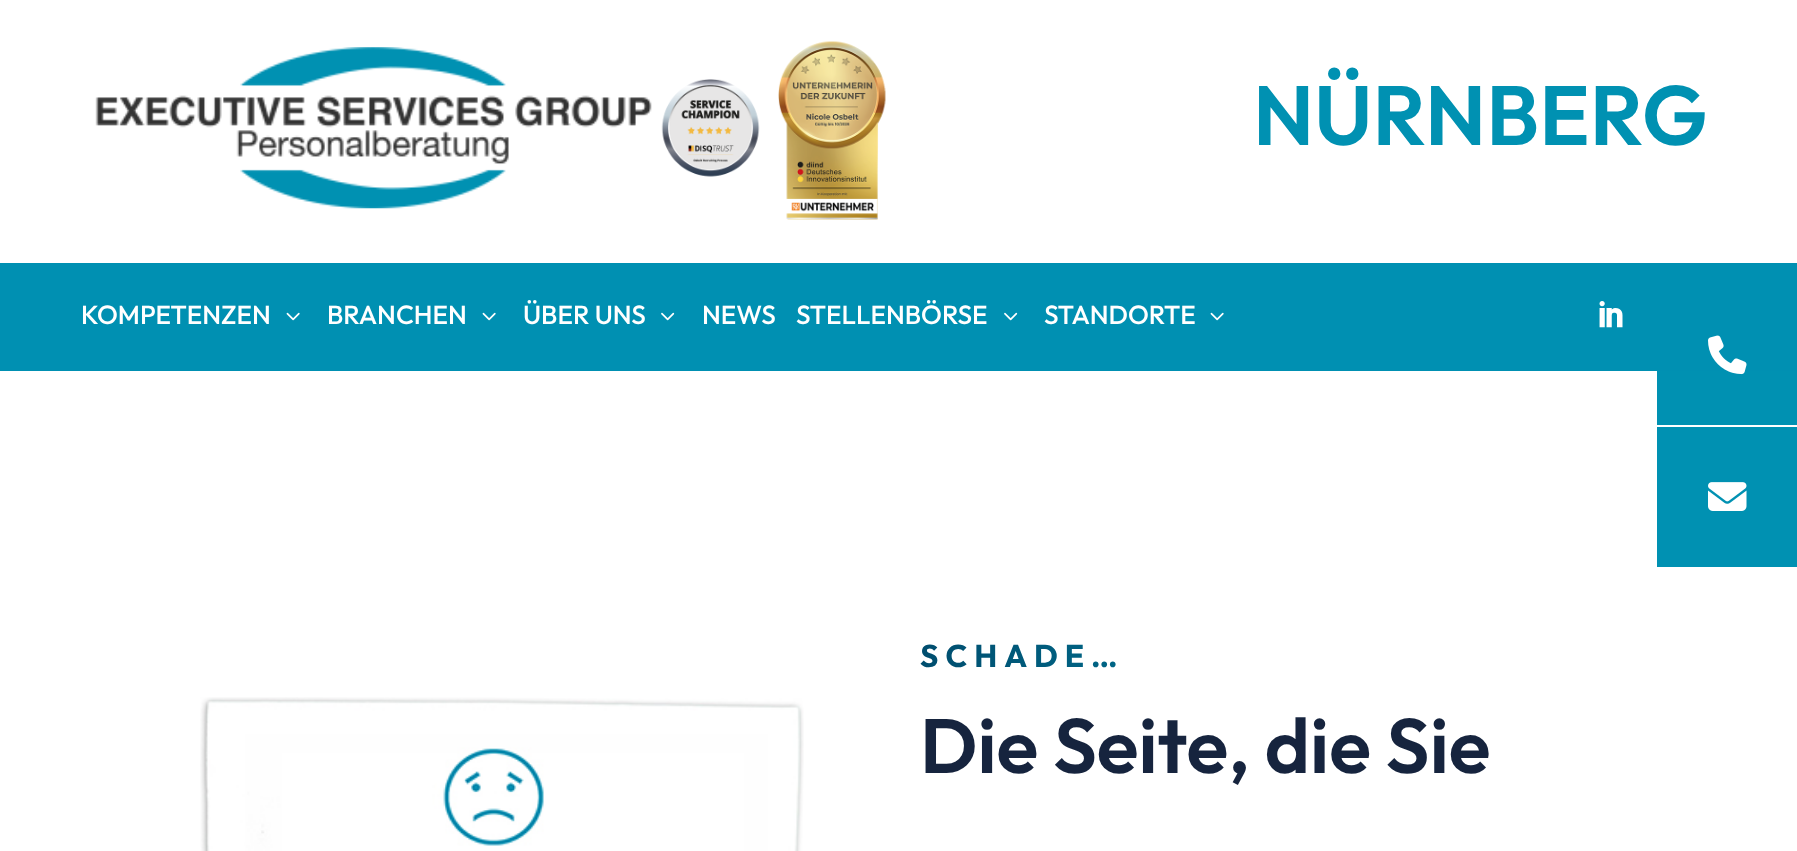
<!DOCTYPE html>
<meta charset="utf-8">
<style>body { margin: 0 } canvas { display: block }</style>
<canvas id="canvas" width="1797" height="851"></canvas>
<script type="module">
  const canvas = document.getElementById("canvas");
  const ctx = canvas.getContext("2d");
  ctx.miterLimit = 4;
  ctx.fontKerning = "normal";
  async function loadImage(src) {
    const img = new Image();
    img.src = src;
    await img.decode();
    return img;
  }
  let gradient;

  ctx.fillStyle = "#ffffff";
  ctx.fillRect(0, 0, 1797, 851);
  ctx.drawImage(await loadImage("img1.png"), 95, 47, 557, 162);
  ctx.drawImage(await loadImage("img2.png"), 661, 79, 99, 98);
  ctx.drawImage(await loadImage("img3.png"), 778, 41, 108, 179);
  ctx.font = "600 84px Outfit";
  ctx.fillStyle = "#0091b2";
  ctx.fillText("NÜRNBERG", 1253, 145);
  ctx.fillStyle = "#0090b2";
  ctx.fillRect(0, 263, 1797, 108);
  ctx.font = "500 26.25px Outfit";
  ctx.fillStyle = "#ffffff";
  ctx.fillText("KOMPETENZEN", 81, 324);
  ctx.drawImage(await loadImage("img4.png"), 286, 312, 14, 9);
  ctx.fillText("BRANCHEN", 327, 324);
  ctx.drawImage(await loadImage("img4.png"), 482, 312, 14, 9);
  ctx.fillText("ÜBER UNS", 523, 324);
  ctx.drawImage(await loadImage("img5.png"), 661, 312, 14, 9);
  ctx.fillText("NEWS", 702, 324);
  ctx.fillText("STELLENBÖRSE", 796, 324);
  ctx.drawImage(await loadImage("img5.png"), 1004, 312, 14, 9);
  ctx.fillText("STANDORTE", 1044, 324);
  ctx.drawImage(await loadImage("img4.png"), 1210, 312, 14, 9);
  ctx.drawImage(await loadImage("img6.png"), 1599, 301, 24, 27);
  ctx.drawImage(await loadImage("img7.png"), 200, 697, 604, 154);
  ctx.letterSpacing = "7px";
  ctx.font = "bold 31.5px Outfit";
  gradient = ctx.createLinearGradient(920, 665, 1707, 665);
  gradient.addColorStop(0, "#004d6e");
  gradient.addColorStop(1, "#00accc");
  ctx.fillStyle = gradient;
  ctx.fillText("SCHADE…", 920, 667);
  ctx.letterSpacing = "0px";
  ctx.font = "600 77px Outfit";
  ctx.fillStyle = "#16243e";
  ctx.fillText("Die Seite, die Sie", 920, 773);
  ctx.fillStyle = "#0091b2";
  ctx.fillRect(1657, 371, 140, 54);
  ctx.drawImage(await loadImage("img8.png"), 1708, 335, 39, 40);
  ctx.fillRect(1657, 427, 140, 140);
  ctx.drawImage(await loadImage("img9.png"), 1708, 482, 39, 29);
</script>
